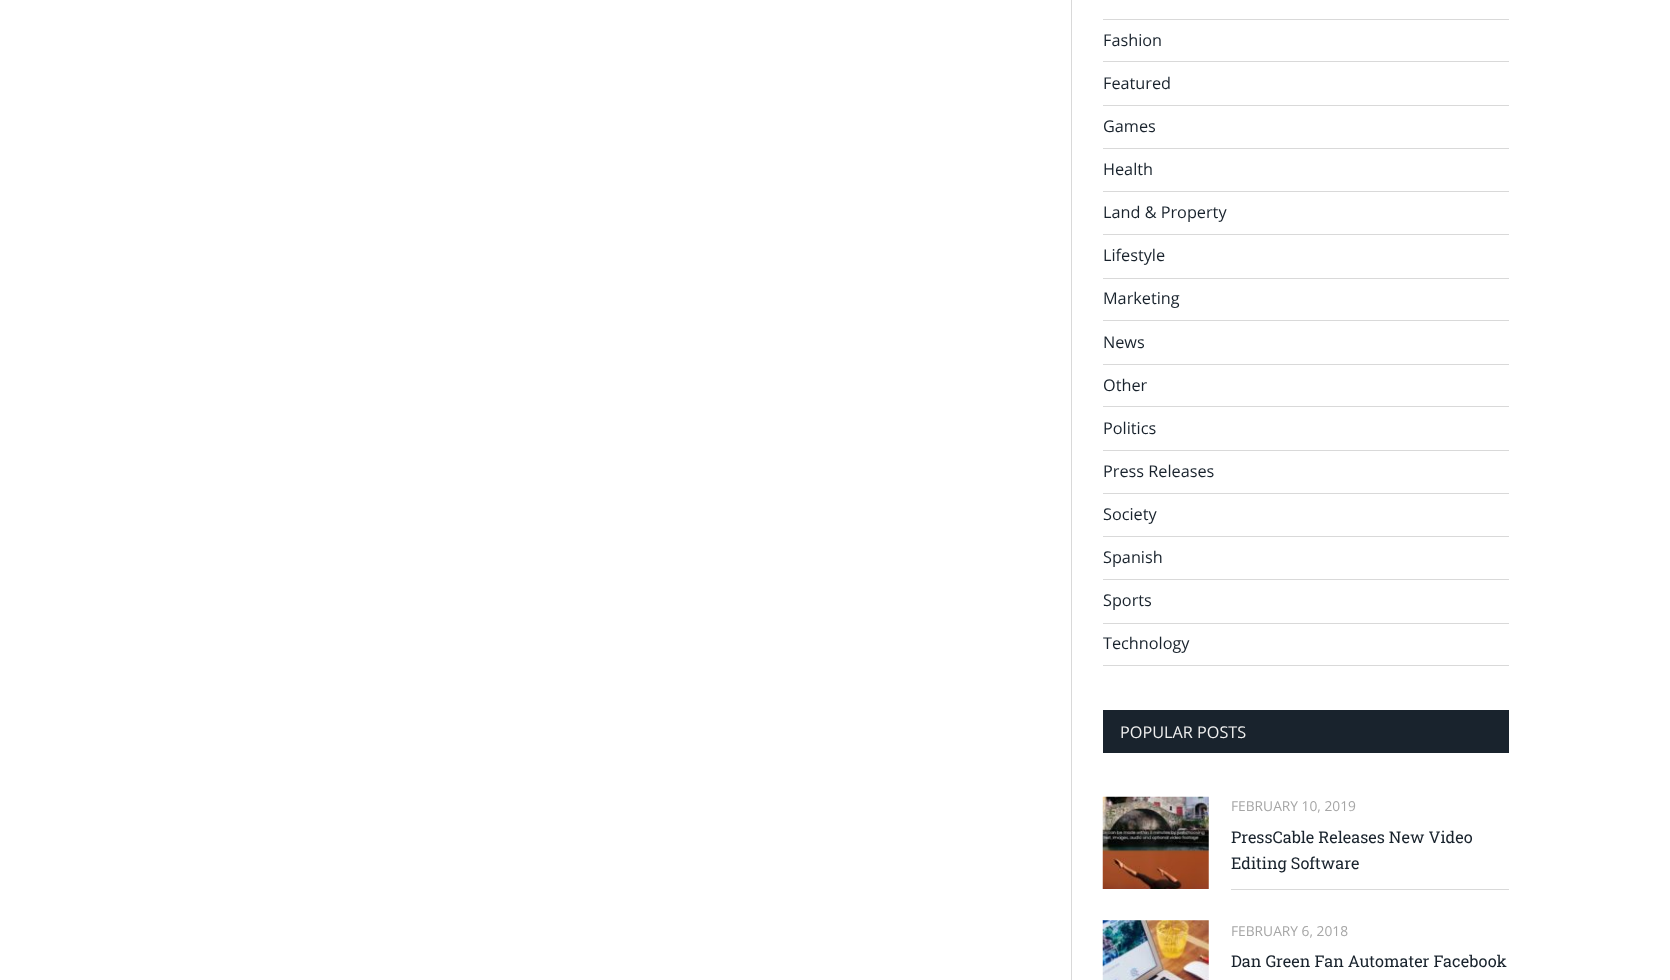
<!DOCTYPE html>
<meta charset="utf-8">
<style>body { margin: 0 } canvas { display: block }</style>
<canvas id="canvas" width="1670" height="980"></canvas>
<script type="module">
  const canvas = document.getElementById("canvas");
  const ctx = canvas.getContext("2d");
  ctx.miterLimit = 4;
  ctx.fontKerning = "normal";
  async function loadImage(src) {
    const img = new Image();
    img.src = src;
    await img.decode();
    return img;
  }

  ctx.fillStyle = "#ffffff";
  ctx.fillRect(0, 0, 1670, 980);
  ctx.fillStyle = "#d9d9d9";
  ctx.fillRect(1071, 0, 1, 980);
  ctx.fillRect(1103, 19, 406, 1);
  ctx.fillRect(1103, 61, 406, 1);
  ctx.font = "16.25px Open Sans";
  ctx.fillStyle = "#19232d";
  ctx.fillText("Fashion", 1103, 46);
  ctx.fillStyle = "#d9d9d9";
  ctx.fillRect(1103, 105, 406, 1);
  ctx.fillStyle = "#19232d";
  ctx.fillText("Featured", 1103, 89);
  ctx.fillStyle = "#d9d9d9";
  ctx.fillRect(1103, 148, 406, 1);
  ctx.fillStyle = "#19232d";
  ctx.fillText("Games", 1103, 132);
  ctx.fillStyle = "#d9d9d9";
  ctx.fillRect(1103, 191, 406, 1);
  ctx.fillStyle = "#19232d";
  ctx.fillText("Health", 1103, 175);
  ctx.fillStyle = "#d9d9d9";
  ctx.fillRect(1103, 234, 406, 1);
  ctx.fillStyle = "#19232d";
  ctx.fillText("Land & Property", 1103, 218);
  ctx.fillStyle = "#d9d9d9";
  ctx.fillRect(1103, 278, 406, 1);
  ctx.fillStyle = "#19232d";
  ctx.fillText("Lifestyle", 1103, 261);
  ctx.fillStyle = "#d9d9d9";
  ctx.fillRect(1103, 320, 406, 1);
  ctx.fillStyle = "#19232d";
  ctx.fillText("Marketing", 1103, 304);
  ctx.fillStyle = "#d9d9d9";
  ctx.fillRect(1103, 364, 406, 1);
  ctx.fillStyle = "#19232d";
  ctx.fillText("News", 1103, 348);
  ctx.fillStyle = "#d9d9d9";
  ctx.fillRect(1103, 406, 406, 1);
  ctx.fillStyle = "#19232d";
  ctx.fillText("Other", 1103, 391);
  ctx.fillStyle = "#d9d9d9";
  ctx.fillRect(1103, 450, 406, 1);
  ctx.fillStyle = "#19232d";
  ctx.fillText("Politics", 1103, 434);
  ctx.fillStyle = "#d9d9d9";
  ctx.fillRect(1103, 493, 406, 1);
  ctx.fillStyle = "#19232d";
  ctx.fillText("Press Releases", 1103, 477);
  ctx.fillStyle = "#d9d9d9";
  ctx.fillRect(1103, 536, 406, 1);
  ctx.fillStyle = "#19232d";
  ctx.fillText("Society", 1103, 520);
  ctx.fillStyle = "#d9d9d9";
  ctx.fillRect(1103, 579, 406, 1);
  ctx.fillStyle = "#19232d";
  ctx.fillText("Spanish", 1103, 563);
  ctx.fillStyle = "#d9d9d9";
  ctx.fillRect(1103, 623, 406, 1);
  ctx.fillStyle = "#19232d";
  ctx.fillText("Sports", 1103, 606);
  ctx.fillStyle = "#d9d9d9";
  ctx.fillRect(1103, 665, 406, 1);
  ctx.fillStyle = "#19232d";
  ctx.fillText("Technology", 1103, 649);
  ctx.fillRect(1103, 710, 406, 43);
  ctx.fillStyle = "#efefef";
  ctx.fillText("POPULAR POSTS", 1120, 738);
  ctx.drawImage(await loadImage("img1.png"), 1102, 796, 107, 93);
  ctx.fillStyle = "#d9d9d9";
  ctx.fillRect(1231, 889, 278, 1);
  ctx.font = "13.75px Open Sans";
  ctx.fillStyle = "#a6a6a6";
  ctx.fillText("FEBRUARY 10, 2019", 1231, 811);
  ctx.font = "16.25px Roboto Slab";
  ctx.fillStyle = "#19232d";
  ctx.fillText("PressCable Releases New Video", 1231, 843);
  ctx.fillText("Editing Software", 1231, 869);
  ctx.drawImage(await loadImage("img2.png"), 1102, 920, 107, 60);
  ctx.font = "13.75px Open Sans";
  ctx.fillStyle = "#a6a6a6";
  ctx.fillText("FEBRUARY 6, 2018", 1231, 936);
  ctx.font = "16.25px Roboto Slab";
  ctx.fillStyle = "#19232d";
  ctx.fillText("Dan Green Fan Automater Facebook", 1231, 967);
</script>
